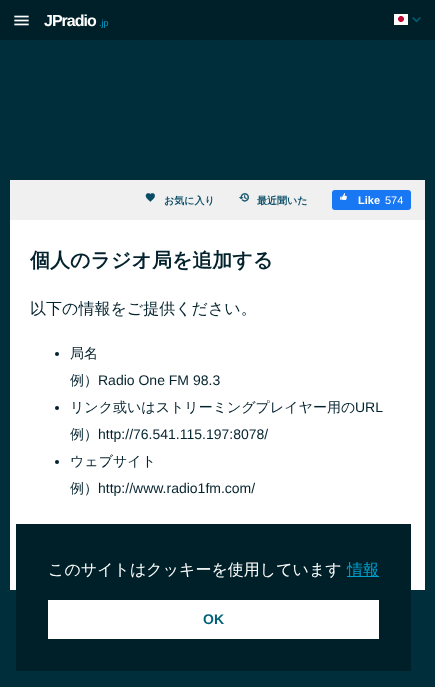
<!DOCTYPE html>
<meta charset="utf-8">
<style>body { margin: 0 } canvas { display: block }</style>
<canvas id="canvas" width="435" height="687"></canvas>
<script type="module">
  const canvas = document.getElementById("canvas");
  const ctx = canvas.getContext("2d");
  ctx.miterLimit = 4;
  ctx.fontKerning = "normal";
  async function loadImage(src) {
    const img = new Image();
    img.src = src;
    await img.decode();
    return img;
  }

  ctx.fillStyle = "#002e3b";
  ctx.fillRect(0, 0, 435, 687);
  ctx.fillStyle = "#002029";
  ctx.fillRect(0, 0, 435, 40);
  ctx.drawImage(await loadImage("img1.png"), 394, 14, 14, 11);
  ctx.drawImage(await loadImage("img2.png"), 412, 17, 9, 6);
  ctx.letterSpacing = "-1px";
  ctx.font = "bold 16px Liberation Sans";
  ctx.fillStyle = "#ffffff";
  ctx.fillText("JPradio", 44, 26);
  ctx.letterSpacing = "0px";
  ctx.font = "9px Liberation Sans";
  ctx.fillStyle = "#00a0ce";
  ctx.fillText(".jp", 99, 26);
  ctx.fillStyle = "#ffffff";
  ctx.fillRect(10, 220, 415, 370);
  ctx.fillStyle = "#f0f0f0";
  ctx.fillRect(10, 180, 415, 40);
  ctx.drawImage(await loadImage("img3.png"), 14, 15, 15, 11);
  ctx.drawImage(await loadImage("img4.png"), 145, 193, 10, 9);
  ctx.font = "bold 10px WenQuanYi Zen Hei";
  ctx.fillStyle = "#094c66";
  ctx.fillText("お気に入り", 164, 204);
  ctx.drawImage(await loadImage("img5.png"), 239, 193, 10, 9);
  ctx.fillText("最近聞いた", 257, 204);
  ctx.fillStyle = "#1877f2";
  ctx.beginPath();
  ctx.roundRect(332, 190, 79, 20, 3);
  ctx.fill();
  ctx.drawImage(await loadImage("img6.png"), 340, 193, 7, 7);
  ctx.font = "bold 11px Liberation Sans";
  ctx.fillStyle = "#ffffff";
  ctx.fillText("Like", 358, 204);
  ctx.font = "11px Liberation Sans";
  ctx.fillText("574", 385, 204);
  ctx.font = "bold 20px WenQuanYi Zen Hei";
  ctx.fillStyle = "#03222d";
  ctx.fillText("個人のラジオ局を追加する", 30, 267);
  ctx.font = "500 16px WenQuanYi Zen Hei";
  ctx.fillText("以下の情報をご提供ください。", 30, 314);
  ctx.beginPath();
  ctx.arc(57, 354, 2, 0, Math.PI * 2);
  ctx.fill();
  ctx.font = "500 14px WenQuanYi Zen Hei";
  ctx.fillText("局名", 70, 358);
  ctx.fillText("例）", 70, 385);
  ctx.font = "14px Liberation Sans";
  ctx.fillText("Radio One FM 98.3", 98, 385);
  ctx.beginPath();
  ctx.arc(57, 408, 2, 0, Math.PI * 2);
  ctx.fill();
  ctx.font = "500 14px WenQuanYi Zen Hei";
  ctx.fillText("リンク或いはストリーミングプレイヤー用の", 70, 412);
  ctx.font = "14px Liberation Sans";
  ctx.fillText("URL", 355, 412);
  ctx.font = "500 14px WenQuanYi Zen Hei";
  ctx.fillText("例）", 70, 439);
  ctx.font = "14px Liberation Sans";
  ctx.fillText("http://76.541.115.197:8078/", 98, 439);
  ctx.beginPath();
  ctx.arc(57, 462, 2, 0, Math.PI * 2);
  ctx.fill();
  ctx.font = "500 14px WenQuanYi Zen Hei";
  ctx.fillText("ウェブサイト", 70, 466);
  ctx.fillText("例）", 70, 493);
  ctx.font = "14px Liberation Sans";
  ctx.fillText("http://www.radio1fm.com/", 98, 493);
  ctx.fillStyle = "#002029";
  ctx.fillRect(16, 524, 395, 147);
  ctx.font = "500 16px WenQuanYi Zen Hei";
  ctx.fillStyle = "#ffffff";
  ctx.fillText("このサイトはクッキーを使用しています", 48, 575);
  ctx.fillStyle = "#00a0ce";
  ctx.fillRect(347, 576, 32, 1);
  ctx.fillText("情報", 347, 575);
  ctx.fillStyle = "#ffffff";
  ctx.fillRect(48, 600, 331, 39);
  ctx.font = "bold 14px Liberation Sans";
  ctx.fillStyle = "#005f79";
  ctx.fillText("OK", 203, 624);
</script>
